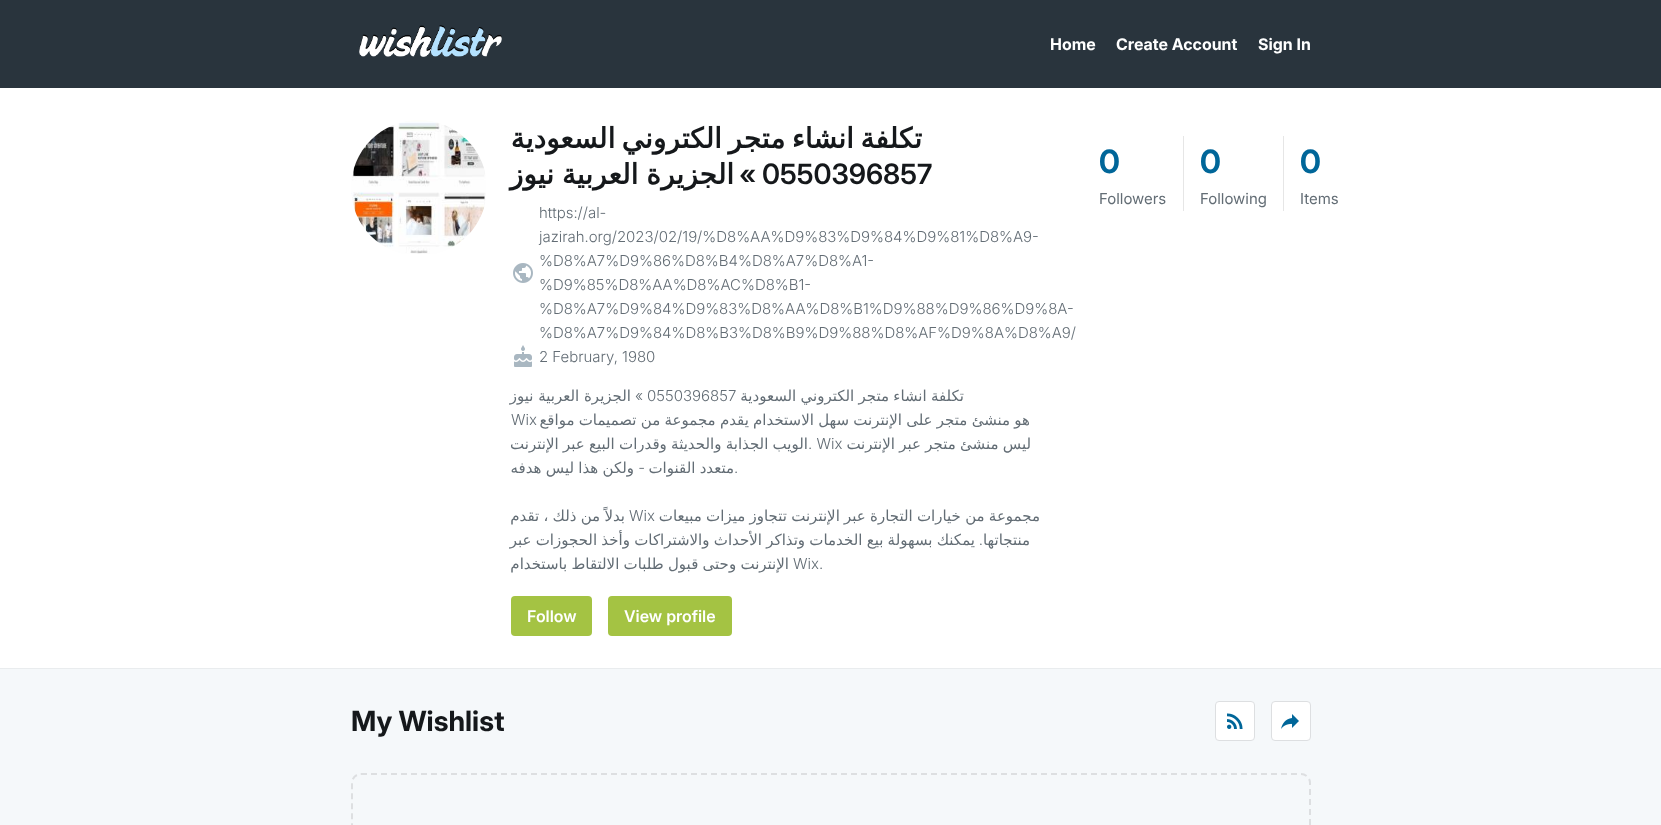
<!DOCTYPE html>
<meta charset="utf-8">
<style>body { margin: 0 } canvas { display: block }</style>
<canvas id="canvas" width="1661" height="825"></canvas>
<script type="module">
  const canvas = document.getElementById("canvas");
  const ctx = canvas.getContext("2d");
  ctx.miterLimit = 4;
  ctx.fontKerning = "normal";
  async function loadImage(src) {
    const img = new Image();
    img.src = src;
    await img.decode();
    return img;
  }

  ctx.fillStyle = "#f5f8fa";
  ctx.fillRect(0, 0, 1661, 825);
  ctx.fillStyle = "#29343d";
  ctx.fillRect(0, 0, 1661, 88);
  ctx.font = "bold 16px Inter";
  ctx.fillStyle = "#ffffff";
  ctx.fillText("Sign In", 1258, 50);
  ctx.fillText("Create Account", 1116, 50);
  ctx.fillText("Home", 1050, 50);
  ctx.drawImage(await loadImage("img1.png"), 359, 25, 143, 32);
  ctx.fillRect(0, 88, 1661, 580);
  ctx.fillStyle = "#e9ecee";
  ctx.fillRect(0, 668, 1661, 1);
  ctx.font = "bold 32px 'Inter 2'";
  ctx.fillStyle = "#006699";
  ctx.fillText("0", 1300, 173);
  ctx.font = "15px Inter";
  ctx.fillStyle = "#636d75";
  ctx.fillText("Items", 1300, 204);
  ctx.fillStyle = "#e6e6e6";
  ctx.fillRect(1283, 136, 1, 75);
  ctx.font = "bold 32px 'Inter 2'";
  ctx.fillStyle = "#006699";
  ctx.fillText("0", 1200, 173);
  ctx.font = "15px Inter";
  ctx.fillStyle = "#636d75";
  ctx.fillText("Following", 1200, 204);
  ctx.fillStyle = "#e6e6e6";
  ctx.fillRect(1183, 136, 1, 75);
  ctx.font = "bold 32px 'Inter 2'";
  ctx.fillStyle = "#006699";
  ctx.fillText("0", 1099, 173);
  ctx.font = "15px Inter";
  ctx.fillStyle = "#636d75";
  ctx.fillText("Followers", 1099, 204);
  ctx.wordSpacing = "-2.5px";
  ctx.direction = "rtl";
  ctx.font = "bold 28px DejaVu Sans";
  ctx.fillStyle = "#15181b";
  ctx.fillText("تكلفة انشاء متجر الكتروني السعودية", 922, 148);
  ctx.wordSpacing = "0px";
  ctx.direction = "ltr";
  ctx.font = "600 28px Inter";
  ctx.fillText("0550396857", 762, 184);
  ctx.direction = "rtl";
  ctx.fillText("»", 756, 184);
  ctx.wordSpacing = "-1px";
  ctx.font = "bold 28px DejaVu Sans";
  ctx.fillText("الجزيرة العربية نيوز", 734, 184);
  ctx.wordSpacing = "0px";
  ctx.direction = "ltr";
  ctx.font = "300 15px Inter";
  ctx.fillStyle = "#636d75";
  ctx.fillText("https://al-", 539, 218);
  ctx.fillText("jazirah.org/2023/02/19/%D8%AA%D9%83%D9%84%D9%81%D8%A9-", 539, 242);
  ctx.fillText("%D8%A7%D9%86%D8%B4%D8%A7%D8%A1-", 539, 266);
  ctx.fillText("%D9%85%D8%AA%D8%AC%D8%B1-", 539, 290);
  ctx.fillText("%D8%A7%D9%84%D9%83%D8%AA%D8%B1%D9%88%D9%86%D9%8A-", 539, 314);
  ctx.fillText("%D8%A7%D9%84%D8%B3%D8%B9%D9%88%D8%AF%D9%8A%D8%A9/", 539, 338);
  ctx.drawImage(await loadImage("img2.png"), 513, 263, 20, 20);
  ctx.fillText("2 February, 1980", 539, 362);
  ctx.drawImage(await loadImage("img3.png"), 514, 345, 18, 22);
  ctx.wordSpacing = "-0.5px";
  ctx.direction = "rtl";
  ctx.font = "15px DejaVu Sans";
  ctx.fillText("تكلفة انشاء متجر الكتروني السعودية", 964, 401);
  ctx.wordSpacing = "0px";
  ctx.direction = "ltr";
  ctx.font = "300 15px 'Inter 2'";
  ctx.fillText("0550396857", 647, 401);
  ctx.direction = "rtl";
  ctx.fillText("»", 643, 401);
  ctx.font = "15px DejaVu Sans";
  ctx.fillText("الجزيرة العربية نيوز", 631, 401);
  ctx.wordSpacing = "-0.5px";
  ctx.fillText("هو منشئ متجر على الإنترنت سهل الاستخدام يقدم مجموعة من تصميمات مواقع", 1030, 425);
  ctx.wordSpacing = "0px";
  ctx.direction = "ltr";
  ctx.font = "300 15px 'Inter 2'";
  ctx.fillText("Wix", 511, 425);
  ctx.wordSpacing = "-0.5px";
  ctx.direction = "rtl";
  ctx.font = "15px DejaVu Sans";
  ctx.fillText("ليس منشئ متجر عبر الإنترنت", 1031, 449);
  ctx.fillText("الويب الجذابة والحديثة وقدرات البيع عبر الإنترنت", 808, 449);
  ctx.wordSpacing = "0px";
  ctx.direction = "ltr";
  ctx.font = "300 15px 'Inter 2'";
  ctx.fillText(". Wix", 808, 449);
  ctx.wordSpacing = "-0.5px";
  ctx.direction = "rtl";
  ctx.font = "15px DejaVu Sans";
  ctx.fillText("متعدد القنوات", 734, 473);
  ctx.wordSpacing = "0px";
  ctx.font = "300 15px 'Inter 2'";
  ctx.fillText("-", 645, 473);
  ctx.wordSpacing = "-0.5px";
  ctx.font = "15px DejaVu Sans";
  ctx.fillText("ولكن هذا ليس هدفه", 634, 473);
  ctx.wordSpacing = "0px";
  ctx.direction = "ltr";
  ctx.font = "300 15px 'Inter 2'";
  ctx.fillText(".", 734, 473);
  ctx.wordSpacing = "-0.5px";
  ctx.direction = "rtl";
  ctx.font = "15px DejaVu Sans";
  ctx.fillText("مجموعة من خيارات التجارة عبر الإنترنت تتجاوز ميزات مبيعات", 1040, 521);
  ctx.wordSpacing = "0px";
  ctx.direction = "ltr";
  ctx.font = "300 15px 'Inter 2'";
  ctx.fillText("Wix", 629, 521);
  ctx.wordSpacing = "-0.5px";
  ctx.direction = "rtl";
  ctx.font = "15px DejaVu Sans";
  ctx.fillText("بدلاً من ذلك ، تقدم", 625, 521);
  ctx.wordSpacing = "0px";
  ctx.fillText("منتجاتها", 1030, 545);
  ctx.font = "300 15px 'Inter 2'";
  ctx.fillText(".", 983, 545);
  ctx.wordSpacing = "-0.5px";
  ctx.font = "15px DejaVu Sans";
  ctx.fillText("يمكنك بسهولة بيع الخدمات وتذاكر الأحداث والاشتراكات وأخذ الحجوزات عبر", 975, 545);
  ctx.wordSpacing = "0px";
  ctx.direction = "ltr";
  ctx.font = "300 15px 'Inter 2'";
  ctx.fillText("Wix.", 793, 569);
  ctx.wordSpacing = "-0.5px";
  ctx.direction = "rtl";
  ctx.font = "15px DejaVu Sans";
  ctx.fillText("الإنترنت وحتى قبول طلبات الالتقاط باستخدام", 789, 569);
  ctx.fillStyle = "#a4c343";
  ctx.beginPath();
  ctx.roundRect(608, 596, 124, 40, 4);
  ctx.fill();
  ctx.wordSpacing = "0px";
  ctx.direction = "ltr";
  ctx.font = "600 16px 'Inter 2'";
  ctx.fillStyle = "#ffffff";
  ctx.fillText("View profile", 624, 622);
  ctx.fillStyle = "#a4c343";
  ctx.beginPath();
  ctx.roundRect(511, 596, 81, 40, 4);
  ctx.fill();
  ctx.fillStyle = "#ffffff";
  ctx.fillText("Follow", 527, 622);
  ctx.drawImage(await loadImage("img4.png"), 351, 120, 135, 134);
  ctx.beginPath();
  ctx.roundRect(1271.5, 701.5, 39, 39, 3.5);
  ctx.fill();
  ctx.strokeStyle = "#dddfe1";
  ctx.stroke();
  ctx.drawImage(await loadImage("img5.png"), 1281, 714, 18, 15);
  ctx.beginPath();
  ctx.roundRect(1215.5, 701.5, 39, 39, 3.5);
  ctx.fill();
  ctx.stroke();
  ctx.drawImage(await loadImage("img6.png"), 1227, 713, 16, 16);
  ctx.font = "bold 28px 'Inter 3'";
  ctx.fillStyle = "#15181b";
  ctx.fillText("My Wishlist", 351, 731);
  ctx.beginPath();
  ctx.moveTo(361, 774);
  ctx.lineTo(1301, 774);
  ctx.bezierCurveTo(1306, 774, 1310, 778, 1310, 783);
  ctx.lineTo(1310, 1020);
  ctx.bezierCurveTo(1310, 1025, 1306, 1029, 1301, 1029);
  ctx.lineTo(361, 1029);
  ctx.bezierCurveTo(356, 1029, 352, 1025, 352, 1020);
  ctx.lineTo(352, 783);
  ctx.bezierCurveTo(352, 778, 356, 774, 361, 774);
  ctx.closePath();
  ctx.lineWidth = 2;
  ctx.setLineDash([6, 4]);
  ctx.stroke();
</script>
